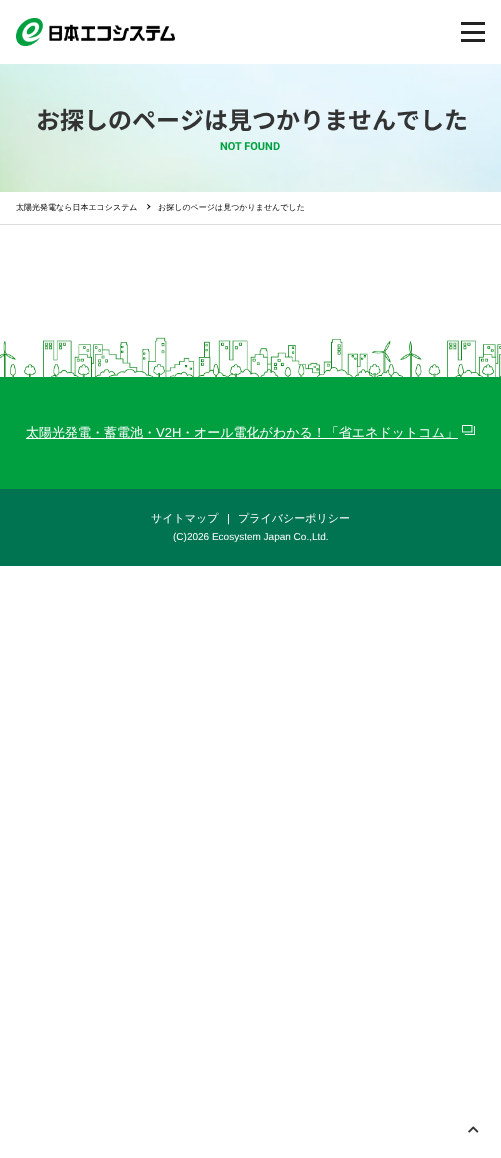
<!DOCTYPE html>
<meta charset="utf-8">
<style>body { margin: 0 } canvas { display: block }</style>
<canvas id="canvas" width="501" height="1158"></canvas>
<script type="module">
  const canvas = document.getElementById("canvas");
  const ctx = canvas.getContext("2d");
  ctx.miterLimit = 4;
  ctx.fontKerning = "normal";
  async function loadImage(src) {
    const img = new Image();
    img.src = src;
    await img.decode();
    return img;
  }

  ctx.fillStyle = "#ffffff";
  ctx.fillRect(0, 0, 501, 1158);
  ctx.drawImage(await loadImage("img1.png"), 16, 18, 159, 28);
  ctx.fillStyle = "#222222";
  ctx.fillRect(461, 22, 24, 3);
  ctx.fillRect(461, 31, 24, 3);
  ctx.fillRect(461, 39, 24, 3);
  ctx.drawImage(await loadImage("img2.png"), 0, 64, 501, 128);
  ctx.font = "bold 24px Noto Sans JP";
  ctx.fillStyle = "#333333";
  ctx.fillText("お探しのページは見つかりませんでした", 36, 129);
  ctx.font = "bold 11px Roboto";
  ctx.fillStyle = "#00a040";
  ctx.fillText("NOT FOUND", 220, 150);
  ctx.fillStyle = "#dddddd";
  ctx.fillRect(0, 224, 501, 1);
  ctx.font = "500 8px WenQuanYi Zen Hei";
  ctx.fillStyle = "#000000";
  ctx.fillText("太陽光発電なら日本エコシステム", 16, 210);
  ctx.beginPath();
  ctx.moveTo(147, 204.5);
  ctx.lineTo(147.5, 204);
  ctx.lineTo(150.5, 206.5);
  ctx.lineTo(149.5, 207.5);
  ctx.closePath();
  ctx.fill();
  ctx.beginPath();
  ctx.moveTo(147, 209);
  ctx.lineTo(149.5, 206);
  ctx.lineTo(150.5, 206.5);
  ctx.lineTo(147.5, 209.5);
  ctx.closePath();
  ctx.fill();
  ctx.fillText("お探しのページは見つかりませんでした", 158, 210);
  ctx.drawImage(await loadImage("img3.png"), 0, 337, 501, 40);
  ctx.fillStyle = "#00a040";
  ctx.fillRect(0, 377, 501, 112);
  ctx.fillStyle = "#ffffff";
  ctx.fillRect(26, 438, 432, 1);
  ctx.font = "500 13px WenQuanYi Zen Hei";
  ctx.fillText("太陽光発電・蓄電池・", 26, 437);
  ctx.font = "13px Liberation Sans";
  ctx.fillText("V2H", 156, 437);
  ctx.font = "500 13px WenQuanYi Zen Hei";
  ctx.fillText("・オール電化がわかる！「省エネドットコム」", 181, 437);
  ctx.drawImage(await loadImage("img4.png"), 462, 425, 13, 10);
  ctx.fillStyle = "#007451";
  ctx.fillRect(0, 489, 501, 77);
  ctx.font = "500 11px WenQuanYi Zen Hei";
  ctx.fillStyle = "#ffffff";
  ctx.fillText("サイトマップ", 151, 522);
  ctx.font = "11px Liberation Sans";
  ctx.fillText("|", 227, 522);
  ctx.font = "500 11px WenQuanYi Zen Hei";
  ctx.fillText("プライバシーポリシー", 238, 522);
  ctx.font = "10px Liberation Sans";
  ctx.fillText("(C)2026 Ecosystem Japan Co.,Ltd.", 173, 540);
  ctx.drawImage(await loadImage("img5.png"), 468, 1126, 11, 7);
</script>
